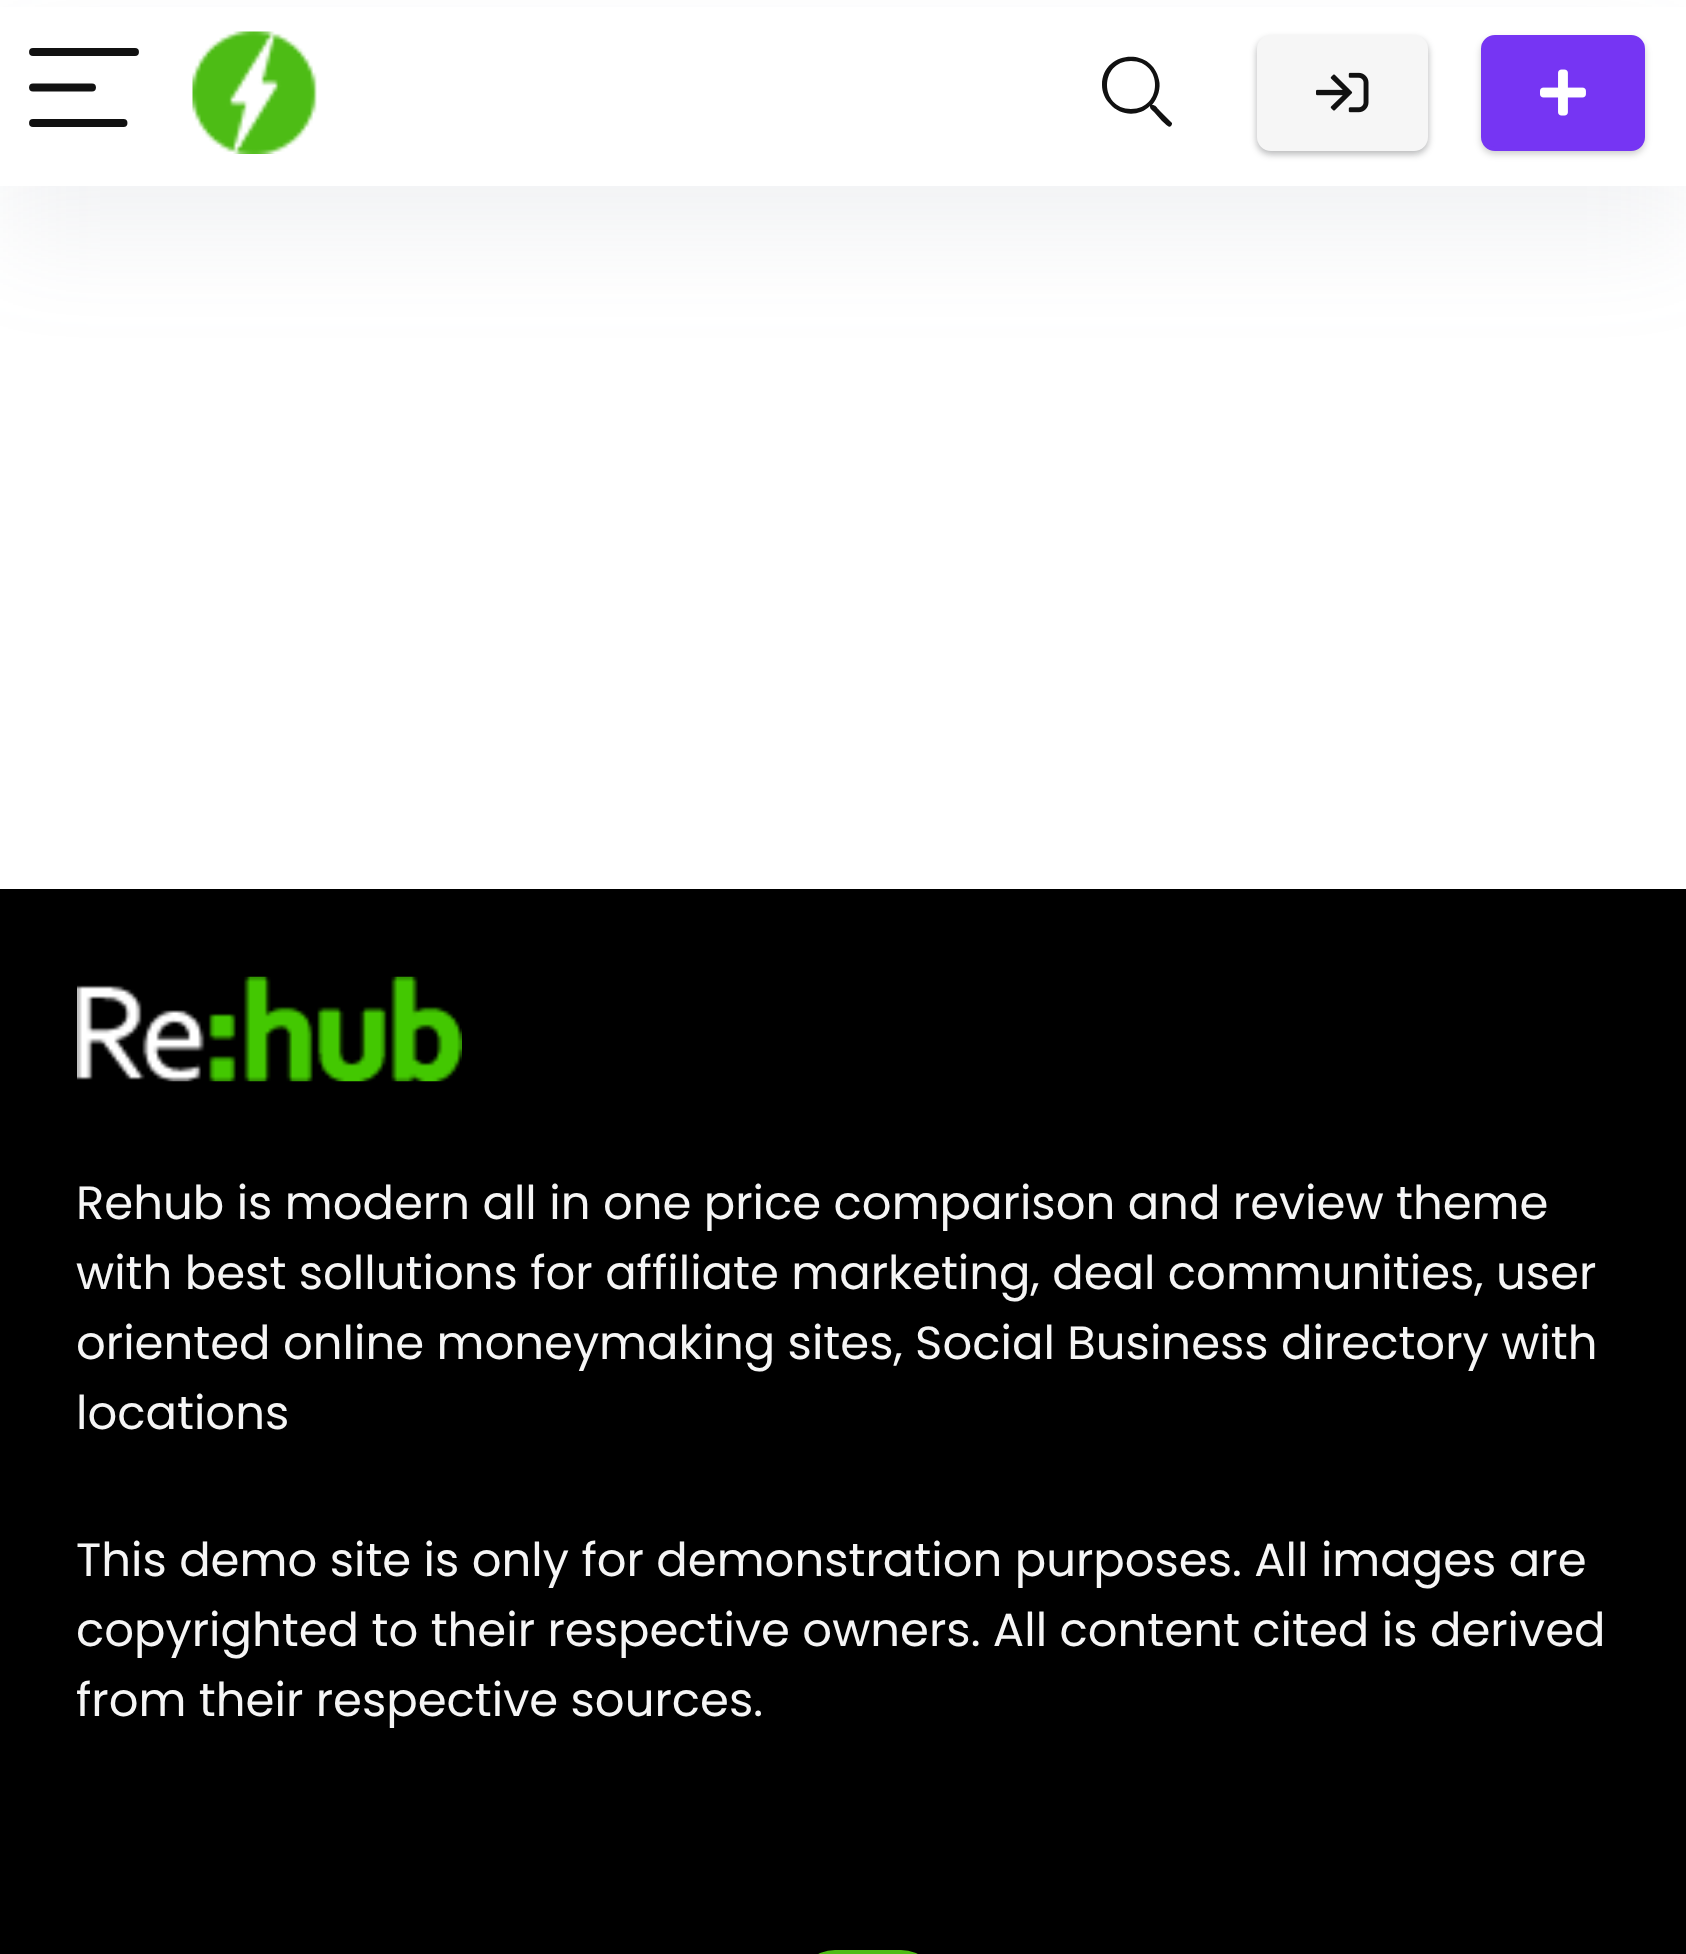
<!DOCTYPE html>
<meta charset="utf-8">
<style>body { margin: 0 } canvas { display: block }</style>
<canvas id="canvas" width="1686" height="1954"></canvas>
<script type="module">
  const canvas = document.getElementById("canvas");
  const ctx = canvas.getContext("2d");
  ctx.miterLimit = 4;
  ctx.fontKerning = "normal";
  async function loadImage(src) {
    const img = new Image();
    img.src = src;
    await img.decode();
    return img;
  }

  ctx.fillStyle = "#ffffff";
  ctx.fillRect(0, 0, 1686, 1954);
  ctx.fillStyle = "rgba(119, 123, 146, 0.1)";
  ctx.filter = "blur(52.5px)";
  ctx.beginPath();
  ctx.rect(0, 53, 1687, 185);
  ctx.fill();
  ctx.filter = "none";
  ctx.fillStyle = "#ffffff";
  ctx.fillRect(0, 7, 1686, 179);
  ctx.beginPath();
  ctx.moveTo(33, 52);
  ctx.lineTo(135, 52);
  ctx.strokeStyle = "#111111";
  ctx.lineWidth = 7.9;
  ctx.lineCap = "round";
  ctx.stroke();
  ctx.beginPath();
  ctx.moveTo(33, 87.5);
  ctx.lineTo(92, 87.5);
  ctx.stroke();
  ctx.beginPath();
  ctx.moveTo(33, 123);
  ctx.lineTo(123.5, 123);
  ctx.stroke();
  ctx.drawImage(await loadImage("img1.png"), 192, 31, 125, 123);
  ctx.fillStyle = "#111111";
  ctx.beginPath();
  ctx.moveTo(1172, 123);
  ctx.lineTo(1160, 111);
  ctx.bezierCurveTo(1156, 107, 1156, 105, 1152, 105);
  ctx.bezierCurveTo(1158, 98, 1161, 88, 1159, 80);
  ctx.bezierCurveTo(1152, 46, 1102, 51, 1102, 85);
  ctx.bezierCurveTo(1102, 92, 1105, 99, 1110, 104);
  ctx.bezierCurveTo(1120, 116, 1139, 117, 1150, 106);
  ctx.bezierCurveTo(1150, 109, 1151, 109, 1154, 112);
  ctx.lineTo(1162, 121);
  ctx.bezierCurveTo(1164, 122, 1170, 131, 1172, 124);
  ctx.closePath();
  ctx.moveTo(1131, 109);
  ctx.bezierCurveTo(1099, 109, 1099, 61, 1131, 61);
  ctx.bezierCurveTo(1163, 61, 1163, 109, 1131, 109);
  ctx.closePath();
  ctx.fill();
  ctx.fillStyle = "rgba(0, 0, 0, 0.08)";
  ctx.filter = "blur(3.5px)";
  ctx.beginPath();
  ctx.roundRect(1257, 39, 171, 115, 14);
  ctx.fill();
  ctx.filter = "none";
  ctx.fillStyle = "rgba(60, 64, 67, 0.3)";
  ctx.filter = "blur(3.5px)";
  ctx.beginPath();
  ctx.roundRect(1257, 39, 171, 115, 14);
  ctx.fill();
  ctx.filter = "none";
  ctx.fillStyle = "#f6f6f6";
  ctx.beginPath();
  ctx.roundRect(1257, 35, 171, 116, 14);
  ctx.fill();
  ctx.drawImage(await loadImage("img2.png"), 1316, 72, 53, 41);
  ctx.fillStyle = "rgba(0, 0, 0, 0.2)";
  ctx.filter = "blur(3.5px)";
  ctx.beginPath();
  ctx.roundRect(1481, 39, 164, 115, 14);
  ctx.fill();
  ctx.filter = "none";
  ctx.fillStyle = "#7635f3";
  ctx.beginPath();
  ctx.roundRect(1483, 37, 160, 112, 12);
  ctx.fill();
  ctx.strokeStyle = "#7635f3";
  ctx.lineWidth = 4;
  ctx.stroke();
  ctx.drawImage(await loadImage("img3.png"), 1540, 69, 46, 47);
  ctx.fillStyle = "#000000";
  ctx.fillRect(0, 889, 1686, 1065);
  ctx.drawImage(await loadImage("img4.png"), 77, 976, 385, 106);
  ctx.font = "46.55px Poppins";
  ctx.fillStyle = "#f5f5f5";
  ctx.fillText("Rehub is modern all in one price comparison and review theme", 76, 1219);
  ctx.fillText("with best sollutions for affiliate marketing, deal communities, user", 76, 1289);
  ctx.fillText("oriented online moneymaking sites, Social Business directory with", 76, 1359);
  ctx.fillText("locations", 76, 1429);
  ctx.fillText("This demo site is only for demonstration purposes. All images are", 76, 1576);
  ctx.fillText("copyrighted to their respective owners. All content cited is derived", 76, 1646);
  ctx.fillText("from their respective sources.", 76, 1716);
  ctx.fillStyle = "#4dbc15";
  ctx.beginPath();
  ctx.roundRect(798, 1950, 140, 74, 70);
  ctx.fill();
</script>
